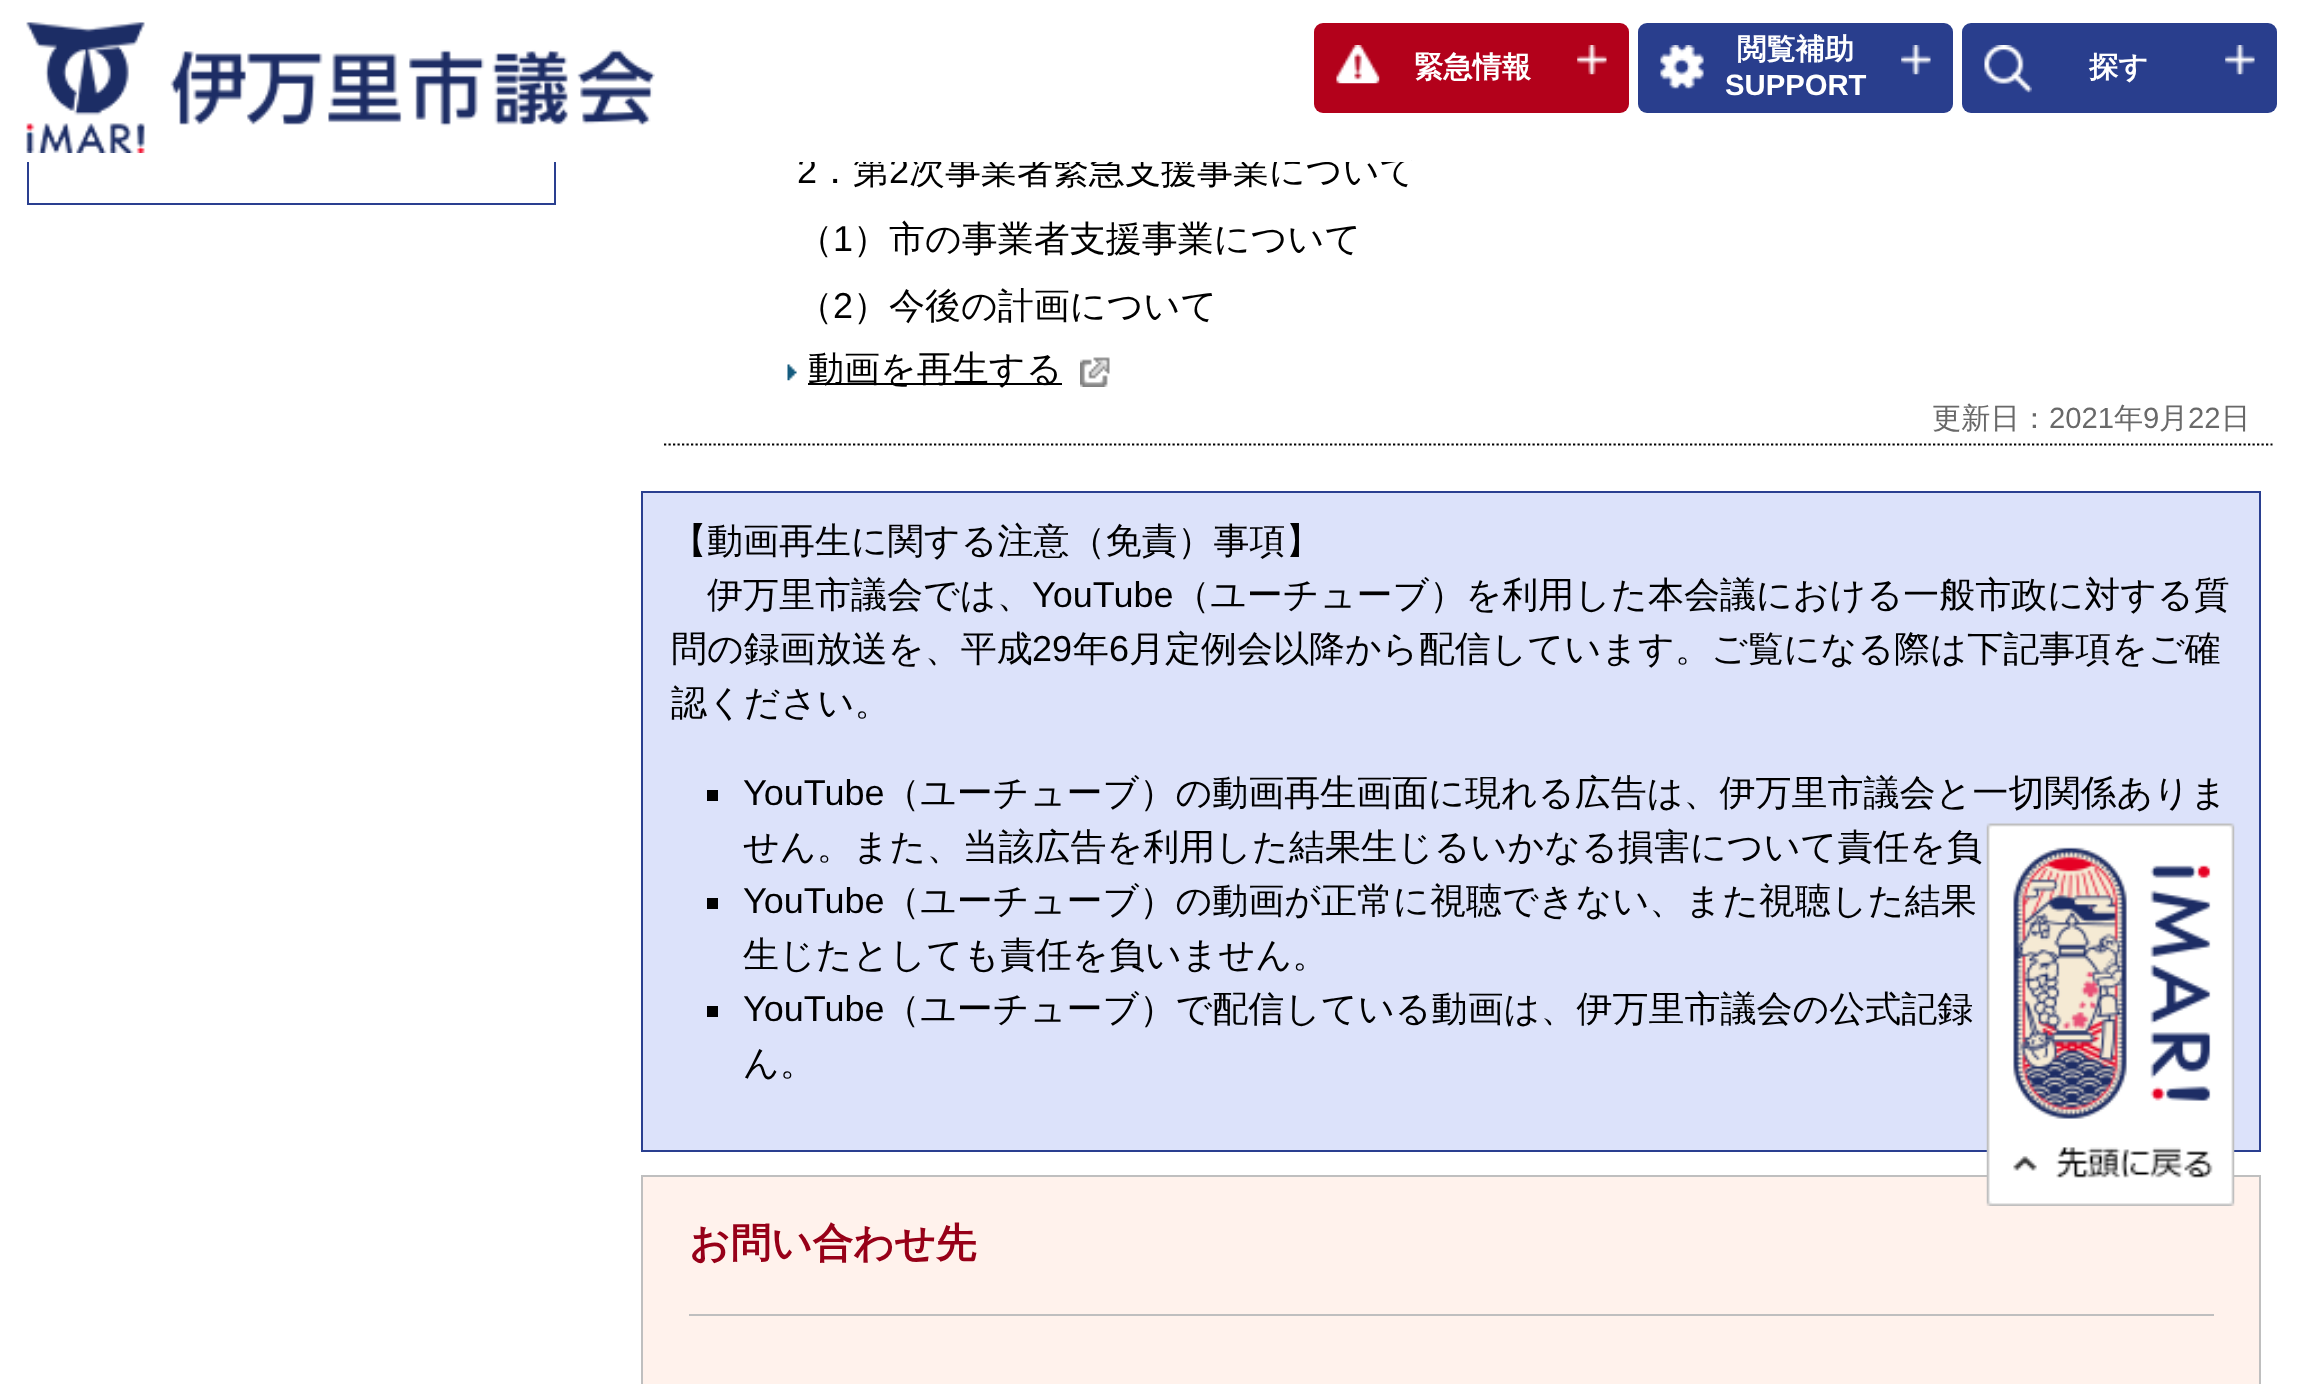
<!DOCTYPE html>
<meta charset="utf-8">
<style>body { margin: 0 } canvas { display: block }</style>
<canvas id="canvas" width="2300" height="1384"></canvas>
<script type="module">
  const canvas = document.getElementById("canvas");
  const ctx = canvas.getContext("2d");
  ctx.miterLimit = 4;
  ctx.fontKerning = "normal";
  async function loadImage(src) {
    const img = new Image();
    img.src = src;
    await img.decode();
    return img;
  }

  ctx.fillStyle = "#ffffff";
  ctx.fillRect(0, 0, 2300, 1384);
  ctx.strokeStyle = "#2a3f90";
  ctx.lineWidth = 2;
  ctx.strokeRect(28, -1, 527, 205);
  ctx.font = "36px Liberation Sans";
  ctx.fillStyle = "#000000";
  ctx.fillText("2", 797, 183);
  ctx.font = "500 36px WenQuanYi Zen Hei";
  ctx.fillText("．第", 817, 183);
  ctx.font = "36px Liberation Sans";
  ctx.fillText("2", 889, 183);
  ctx.font = "500 36px WenQuanYi Zen Hei";
  ctx.fillText("次事業者緊急支援事業について", 909, 183);
  ctx.fillStyle = "#ffffff";
  ctx.fillRect(27, 0, 1384, 162);
  ctx.drawImage(await loadImage("img1.png"), 26, 22, 629, 131);
  ctx.fillStyle = "#b3011b";
  ctx.beginPath();
  ctx.roundRect(1314, 23, 315, 90, 9);
  ctx.fill();
  ctx.drawImage(await loadImage("img2.png"), 1336, 45, 44, 39);
  ctx.drawImage(await loadImage("img3.png"), 1577, 45, 30, 30);
  ctx.font = "bold 29.25px WenQuanYi Zen Hei";
  ctx.fillStyle = "#ffffff";
  ctx.fillText("緊急情報", 1414, 77);
  ctx.fillStyle = "#293e8d";
  ctx.beginPath();
  ctx.roundRect(1638, 23, 315, 90, 9);
  ctx.fill();
  ctx.drawImage(await loadImage("img4.png"), 1660, 45, 44, 45);
  ctx.drawImage(await loadImage("img5.png"), 1901, 45, 30, 30);
  ctx.fillStyle = "#ffffff";
  ctx.fillText("閲覧補助", 1737, 59);
  ctx.font = "bold 29.25px Liberation Sans";
  ctx.fillText("SUPPORT", 1725, 95);
  ctx.fillStyle = "#293e8d";
  ctx.beginPath();
  ctx.roundRect(1962, 23, 315, 90, 9);
  ctx.fill();
  ctx.drawImage(await loadImage("img6.png"), 1984, 45, 48, 48);
  ctx.drawImage(await loadImage("img5.png"), 2225, 45, 30, 30);
  ctx.font = "bold 29.25px WenQuanYi Zen Hei";
  ctx.fillStyle = "#ffffff";
  ctx.fillText("探す", 2089, 77);
  ctx.beginPath();
  ctx.moveTo(664, 444.5);
  ctx.lineTo(2272.5, 444.5);
  ctx.strokeStyle = "#000000";
  ctx.lineWidth = 2.2;
  ctx.setLineDash([2.25, 2.25]);
  ctx.stroke();
  ctx.font = "500 36px WenQuanYi Zen Hei";
  ctx.fillStyle = "#000000";
  ctx.fillText("（", 797, 251);
  ctx.font = "36px Liberation Sans";
  ctx.fillText("1", 833, 251);
  ctx.font = "500 36px WenQuanYi Zen Hei";
  ctx.fillText("）市の事業者支援事業について", 853, 251);
  ctx.fillText("（", 797, 318);
  ctx.font = "36px Liberation Sans";
  ctx.fillText("2", 833, 318);
  ctx.font = "500 36px WenQuanYi Zen Hei";
  ctx.fillText("）今後の計画について", 853, 318);
  ctx.drawImage(await loadImage("img7.png"), 787, 364, 10, 17);
  ctx.fillRect(808, 383, 254, 2);
  ctx.fillText("動画を再生する", 808, 381);
  ctx.drawImage(await loadImage("img8.png"), 1080, 357, 30, 30);
  ctx.font = "500 29.25px WenQuanYi Zen Hei";
  ctx.fillStyle = "#696969";
  ctx.fillText("更新日：", 1932, 428);
  ctx.font = "29.25px Liberation Sans";
  ctx.fillText("2021", 2049, 428);
  ctx.font = "500 29.25px WenQuanYi Zen Hei";
  ctx.fillText("年", 2114, 428);
  ctx.font = "29.25px Liberation Sans";
  ctx.fillText("9", 2143, 428);
  ctx.font = "500 29.25px WenQuanYi Zen Hei";
  ctx.fillText("月", 2159, 428);
  ctx.font = "29.25px Liberation Sans";
  ctx.fillText("22", 2188, 428);
  ctx.font = "500 29.25px WenQuanYi Zen Hei";
  ctx.fillText("日", 2221, 428);
  ctx.fillStyle = "#dce2fa";
  ctx.beginPath();
  ctx.rect(642, 492, 1618, 659);
  ctx.fill();
  ctx.strokeStyle = "#2a3f90";
  ctx.lineWidth = 2;
  ctx.setLineDash([]);
  ctx.stroke();
  ctx.font = "500 36px WenQuanYi Zen Hei";
  ctx.fillStyle = "#000000";
  ctx.fillText("【動画再生に関する注意（免責）事項】", 671, 553);
  ctx.fillText("伊万里市議会では、", 707, 607);
  ctx.font = "36px Liberation Sans";
  ctx.fillText("YouTube", 1032, 607);
  ctx.font = "500 36px WenQuanYi Zen Hei";
  ctx.fillText("（ユーチューブ）を利用した本会議における一般市政に対する質", 1174, 607);
  ctx.fillText("問の録画放送を、平成", 671, 661);
  ctx.font = "36px Liberation Sans";
  ctx.fillText("29", 1032, 661);
  ctx.font = "500 36px WenQuanYi Zen Hei";
  ctx.fillText("年", 1073, 661);
  ctx.font = "36px Liberation Sans";
  ctx.fillText("6", 1109, 661);
  ctx.font = "500 36px WenQuanYi Zen Hei";
  ctx.fillText("月定例会以降から配信しています。ご覧になる際は下記事項をご確", 1129, 661);
  ctx.fillText("認ください。", 671, 715);
  ctx.fillRect(707, 790, 11, 11);
  ctx.font = "36px Liberation Sans";
  ctx.fillText("YouTube", 743, 805);
  ctx.font = "500 36px WenQuanYi Zen Hei";
  ctx.fillText("（ユーチューブ）の動画再生画面に現れる広告は、伊万里市議会と一切関係ありま", 884, 805);
  ctx.fillText("せん。また、当該広告を利用した結果生じるいかなる損害について責任を負", 743, 859);
  ctx.fillRect(707, 898, 11, 11);
  ctx.font = "36px Liberation Sans";
  ctx.fillText("YouTube", 743, 913);
  ctx.font = "500 36px WenQuanYi Zen Hei";
  ctx.fillText("（ユーチューブ）の動画が正常に視聴できない、また視聴した結果", 884, 913);
  ctx.fillText("生じたとしても責任を負いません。", 743, 967);
  ctx.fillRect(707, 1006, 11, 11);
  ctx.font = "36px Liberation Sans";
  ctx.fillText("YouTube", 743, 1021);
  ctx.font = "500 36px WenQuanYi Zen Hei";
  ctx.fillText("（ユーチューブ）で配信している動画は、伊万里市議会の公式記録", 884, 1021);
  ctx.fillText("ん。", 743, 1075);
  ctx.fillStyle = "#fff2ec";
  ctx.beginPath();
  ctx.rect(642, 1176, 1618, 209);
  ctx.fill();
  ctx.strokeStyle = "#bfbfbf";
  ctx.stroke();
  ctx.drawImage(await loadImage("img9.png"), 1986, 823, 249, 383);
  ctx.fillStyle = "#bfbfbf";
  ctx.fillRect(689, 1314, 1525, 2);
  ctx.font = "bold 40.5px WenQuanYi Zen Hei";
  ctx.fillStyle = "#970018";
  ctx.fillText("お問い合わせ先", 689, 1257);
</script>
